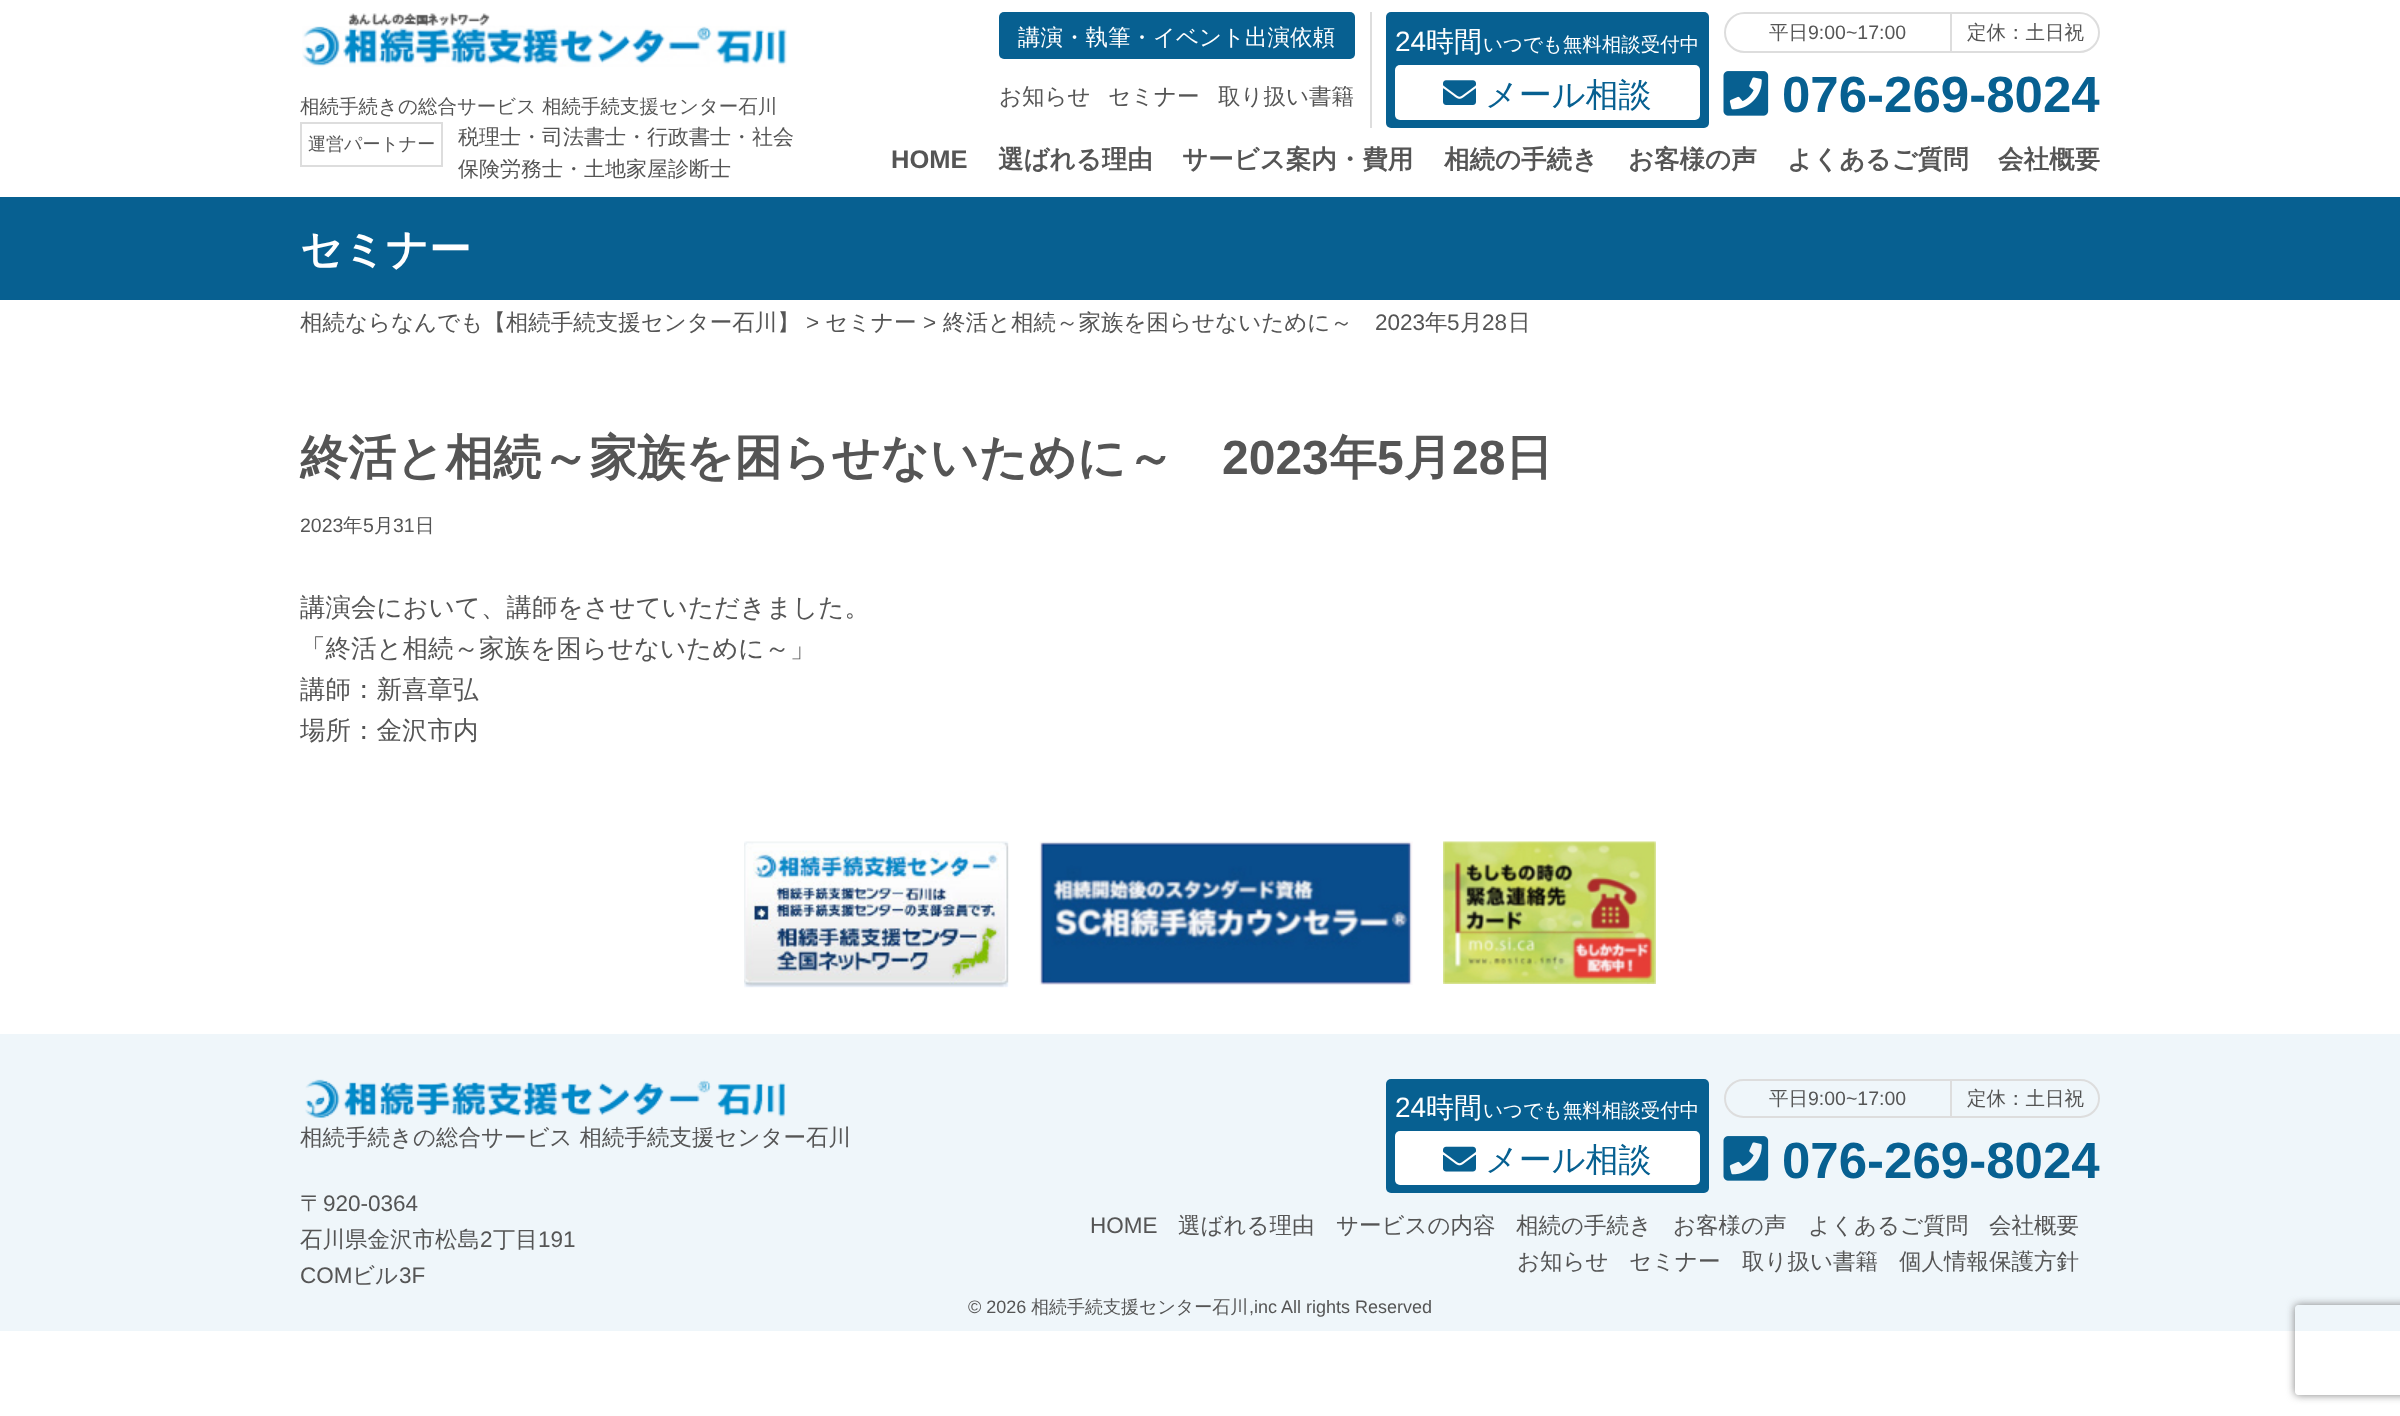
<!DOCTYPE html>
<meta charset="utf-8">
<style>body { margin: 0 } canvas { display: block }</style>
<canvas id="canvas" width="2400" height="1416"></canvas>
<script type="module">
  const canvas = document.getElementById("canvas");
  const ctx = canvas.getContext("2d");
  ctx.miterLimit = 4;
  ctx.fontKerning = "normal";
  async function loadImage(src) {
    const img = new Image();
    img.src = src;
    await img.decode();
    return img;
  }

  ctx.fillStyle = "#ffffff";
  ctx.fillRect(0, 0, 2400, 1416);
  ctx.drawImage(await loadImage("img1.png"), 302, 13, 485, 54);
  ctx.font = "500 19.5px WenQuanYi Zen Hei";
  ctx.fillStyle = "#555555";
  ctx.fillText("相続手続きの総合サービス", 300, 113);
  ctx.fillText("相続手続支援センター石川", 542, 113);
  ctx.strokeStyle = "#dddddd";
  ctx.lineWidth = 2;
  ctx.strokeRect(301, 123, 141, 43);
  ctx.font = "500 18px WenQuanYi Zen Hei";
  ctx.fillText("運営パートナー", 308, 150);
  ctx.font = "500 21px WenQuanYi Zen Hei";
  ctx.fillText("税理士・司法書士・行政書士・社会", 458, 144);
  ctx.fillText("保険労務士・土地家屋診断士", 458, 176);
  ctx.fillStyle = "#dddddd";
  ctx.fillRect(1370, 12, 2, 116);
  ctx.fillStyle = "#076091";
  ctx.beginPath();
  ctx.roundRect(999, 12, 356, 47, 5);
  ctx.fill();
  ctx.font = "500 22.5px WenQuanYi Zen Hei";
  ctx.fillStyle = "#ffffff";
  ctx.fillText("講演・執筆・イベント出演依頼", 1018, 45);
  ctx.fillStyle = "#555555";
  ctx.fillText("お知らせ", 999, 104);
  ctx.fillText("セミナー", 1108, 104);
  ctx.fillText("取り扱い書籍", 1218, 104);
  ctx.fillStyle = "#076091";
  ctx.beginPath();
  ctx.roundRect(1386, 12, 323, 116, 5);
  ctx.fill();
  ctx.font = "28px Liberation Sans";
  ctx.fillStyle = "#ffffff";
  ctx.fillText("24", 1395, 51);
  ctx.font = "500 28px WenQuanYi Zen Hei";
  ctx.fillText("時間", 1426, 51);
  ctx.font = "500 19.5px WenQuanYi Zen Hei";
  ctx.fillText("いつでも無料相談受付中", 1483, 51);
  ctx.beginPath();
  ctx.roundRect(1395, 65, 305, 55, 5);
  ctx.fill();
  ctx.drawImage(await loadImage("img2.png"), 1443, 80, 33, 25);
  ctx.font = "500 33px WenQuanYi Zen Hei";
  ctx.fillStyle = "#076091";
  ctx.fillText("メール相談", 1485, 106);
  ctx.beginPath();
  ctx.roundRect(1725, 13, 374, 39, 19.5);
  ctx.stroke();
  ctx.fillStyle = "#dddddd";
  ctx.fillRect(1950, 14, 2, 37);
  ctx.font = "500 19.5px WenQuanYi Zen Hei";
  ctx.fillStyle = "#555555";
  ctx.fillText("平日", 1769, 39);
  ctx.font = "19.5px Liberation Sans";
  ctx.fillText("9:00~17:00", 1808, 39);
  ctx.font = "500 19.5px WenQuanYi Zen Hei";
  ctx.fillText("定休：土日祝", 1967, 39);
  ctx.drawImage(await loadImage("img3.png"), 1723, 71, 46, 45);
  ctx.font = "bold 51px Liberation Sans";
  ctx.fillStyle = "#076091";
  ctx.fillText("076-269-8024", 1782, 112);
  ctx.font = "bold 25.5px Liberation Sans";
  ctx.fillStyle = "#555555";
  ctx.fillText("HOME", 891, 168);
  ctx.font = "bold 25.5px WenQuanYi Zen Hei";
  ctx.fillText("選ばれる理由", 998, 168);
  ctx.fillText("サービス案内・費用", 1182, 168);
  ctx.fillText("相続の手続き", 1444, 168);
  ctx.fillText("お客様の声", 1628, 168);
  ctx.fillText("よくあるご質問", 1787, 168);
  ctx.fillText("会社概要", 1998, 168);
  ctx.fillStyle = "#076091";
  ctx.fillRect(0, 197, 2400, 103);
  ctx.font = "bold 42px WenQuanYi Zen Hei";
  ctx.fillStyle = "#ffffff";
  ctx.fillText("セミナー", 300, 264);
  ctx.font = "500 22.5px WenQuanYi Zen Hei";
  ctx.fillStyle = "#555555";
  ctx.fillText("相続ならなんでも【相続手続支援センター石川】", 300, 330);
  ctx.font = "22.5px Liberation Sans";
  ctx.fillText(">", 806, 330);
  ctx.font = "500 22.5px WenQuanYi Zen Hei";
  ctx.fillText("セミナー", 825, 330);
  ctx.font = "22.5px Liberation Sans";
  ctx.fillText(">", 923, 330);
  ctx.font = "500 22.5px WenQuanYi Zen Hei";
  ctx.fillText("終活と相続～家族を困らせないために～", 943, 330);
  ctx.font = "22.5px Liberation Sans";
  ctx.fillText("2023", 1375, 330);
  ctx.font = "500 22.5px WenQuanYi Zen Hei";
  ctx.fillText("年", 1425, 330);
  ctx.font = "22.5px Liberation Sans";
  ctx.fillText("5", 1447, 330);
  ctx.font = "500 22.5px WenQuanYi Zen Hei";
  ctx.fillText("月", 1460, 330);
  ctx.font = "22.5px Liberation Sans";
  ctx.fillText("28", 1482, 330);
  ctx.font = "500 22.5px WenQuanYi Zen Hei";
  ctx.fillText("日", 1508, 330);
  ctx.font = "bold 48px WenQuanYi Zen Hei";
  ctx.fillText("終活と相続～家族を困らせないために～", 300, 474);
  ctx.font = "bold 48px Liberation Sans";
  ctx.fillText("2023", 1222, 474);
  ctx.font = "bold 48px WenQuanYi Zen Hei";
  ctx.fillText("年", 1329, 474);
  ctx.font = "bold 48px Liberation Sans";
  ctx.fillText("5", 1377, 474);
  ctx.font = "bold 48px WenQuanYi Zen Hei";
  ctx.fillText("月", 1404, 474);
  ctx.font = "bold 48px Liberation Sans";
  ctx.fillText("28", 1452, 474);
  ctx.font = "bold 48px WenQuanYi Zen Hei";
  ctx.fillText("日", 1505, 474);
  ctx.font = "19.5px Liberation Sans";
  ctx.fillText("2023", 300, 532);
  ctx.font = "500 19.5px WenQuanYi Zen Hei";
  ctx.fillText("年", 343, 532);
  ctx.font = "19.5px Liberation Sans";
  ctx.fillText("5", 363, 532);
  ctx.font = "500 19.5px WenQuanYi Zen Hei";
  ctx.fillText("月", 374, 532);
  ctx.font = "19.5px Liberation Sans";
  ctx.fillText("31", 393, 532);
  ctx.font = "500 19.5px WenQuanYi Zen Hei";
  ctx.fillText("日", 415, 532);
  ctx.font = "500 25.5px WenQuanYi Zen Hei";
  ctx.fillText("講演会において、講師をさせていただきました。", 300, 616);
  ctx.fillText("「終活と相続～家族を困らせないために～」", 300, 657);
  ctx.fillText("講師：新喜章弘", 300, 698);
  ctx.fillText("場所：金沢市内", 300, 739);
  ctx.drawImage(await loadImage("img4.png"), 744, 841, 265, 147);
  ctx.drawImage(await loadImage("img5.png"), 1039, 841, 374, 144);
  ctx.drawImage(await loadImage("img6.png"), 1443, 841, 213, 143);
  ctx.fillStyle = "#eff6fa";
  ctx.fillRect(0, 1034, 2400, 297);
  ctx.drawImage(await loadImage("img7.png"), 305, 1079, 481, 39);
  ctx.font = "500 22.5px WenQuanYi Zen Hei";
  ctx.fillStyle = "#555555";
  ctx.fillText("相続手続きの総合サービス 相続手続支援センター石川", 300, 1145);
  ctx.fillText("〒", 300, 1211);
  ctx.font = "22.5px Liberation Sans";
  ctx.fillText("920-0364", 323, 1211);
  ctx.font = "500 22.5px WenQuanYi Zen Hei";
  ctx.fillText("石川県金沢市松島", 300, 1247);
  ctx.font = "22.5px Liberation Sans";
  ctx.fillText("2", 480, 1247);
  ctx.font = "500 22.5px WenQuanYi Zen Hei";
  ctx.fillText("丁目", 493, 1247);
  ctx.font = "22.5px Liberation Sans";
  ctx.fillText("191", 538, 1247);
  ctx.fillText("COM", 300, 1283);
  ctx.font = "500 22.5px WenQuanYi Zen Hei";
  ctx.fillText("ビル", 352, 1283);
  ctx.font = "22.5px Liberation Sans";
  ctx.fillText("3F", 399, 1283);
  ctx.fillStyle = "#076091";
  ctx.beginPath();
  ctx.roundRect(1386, 1079, 323, 114, 5);
  ctx.fill();
  ctx.font = "28px Liberation Sans";
  ctx.fillStyle = "#ffffff";
  ctx.fillText("24", 1395, 1117);
  ctx.font = "500 28px WenQuanYi Zen Hei";
  ctx.fillText("時間", 1426, 1117);
  ctx.font = "500 19.5px WenQuanYi Zen Hei";
  ctx.fillText("いつでも無料相談受付中", 1483, 1117);
  ctx.beginPath();
  ctx.roundRect(1395, 1131, 305, 54, 5);
  ctx.fill();
  ctx.drawImage(await loadImage("img8.png"), 1443, 1146, 33, 26);
  ctx.font = "500 33px WenQuanYi Zen Hei";
  ctx.fillStyle = "#076091";
  ctx.fillText("メール相談", 1485, 1171);
  ctx.beginPath();
  ctx.roundRect(1725, 1080, 374, 37, 18.5);
  ctx.stroke();
  ctx.fillStyle = "#dddddd";
  ctx.fillRect(1950, 1080, 2, 36);
  ctx.font = "500 19.5px WenQuanYi Zen Hei";
  ctx.fillStyle = "#555555";
  ctx.fillText("平日", 1769, 1105);
  ctx.font = "19.5px Liberation Sans";
  ctx.fillText("9:00~17:00", 1808, 1105);
  ctx.font = "500 19.5px WenQuanYi Zen Hei";
  ctx.fillText("定休：土日祝", 1967, 1105);
  ctx.drawImage(await loadImage("img9.png"), 1723, 1136, 46, 45);
  ctx.font = "bold 51px Liberation Sans";
  ctx.fillStyle = "#076091";
  ctx.fillText("076-269-8024", 1782, 1178);
  ctx.font = "22.5px Liberation Sans";
  ctx.fillStyle = "#555555";
  ctx.fillText("HOME", 1090, 1233);
  ctx.font = "500 22.5px WenQuanYi Zen Hei";
  ctx.fillText("選ばれる理由", 1178, 1233);
  ctx.fillText("サービスの内容", 1336, 1233);
  ctx.fillText("相続の手続き", 1516, 1233);
  ctx.fillText("お客様の声", 1673, 1233);
  ctx.fillText("よくあるご質問", 1808, 1233);
  ctx.fillText("会社概要", 1989, 1233);
  ctx.fillText("お知らせ", 1517, 1269);
  ctx.fillText("セミナー", 1629, 1269);
  ctx.fillText("取り扱い書籍", 1742, 1269);
  ctx.fillText("個人情報保護方針", 1899, 1269);
  ctx.font = "18px Liberation Sans";
  ctx.fillText("© 2026", 968, 1313);
  ctx.font = "500 18px WenQuanYi Zen Hei";
  ctx.fillText("相続手続支援センター石川", 1031, 1313);
  ctx.font = "18px Liberation Sans";
  ctx.fillText(",inc All rights Reserved", 1249, 1313);
  ctx.save();
  ctx.beginPath();
  ctx.moveTo(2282, 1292);
  ctx.lineTo(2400, 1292);
  ctx.lineTo(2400, 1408);
  ctx.lineTo(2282, 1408);
  ctx.closePath();
  ctx.moveTo(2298, 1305);
  ctx.lineTo(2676, 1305);
  ctx.bezierCurveTo(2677.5, 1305, 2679, 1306.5, 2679, 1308);
  ctx.lineTo(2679, 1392);
  ctx.bezierCurveTo(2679, 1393.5, 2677.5, 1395, 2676, 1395);
  ctx.lineTo(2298, 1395);
  ctx.bezierCurveTo(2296.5, 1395, 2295, 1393.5, 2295, 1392);
  ctx.lineTo(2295, 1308);
  ctx.bezierCurveTo(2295, 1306.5, 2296.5, 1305, 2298, 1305);
  ctx.closePath();
  ctx.clip("evenodd");
  ctx.fillStyle = "#808080";
  ctx.filter = "blur(4px)";
  ctx.beginPath();
  ctx.roundRect(2295, 1305, 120, 90, 3);
  ctx.fill();
  ctx.filter = "none";
  ctx.restore();
</script>
